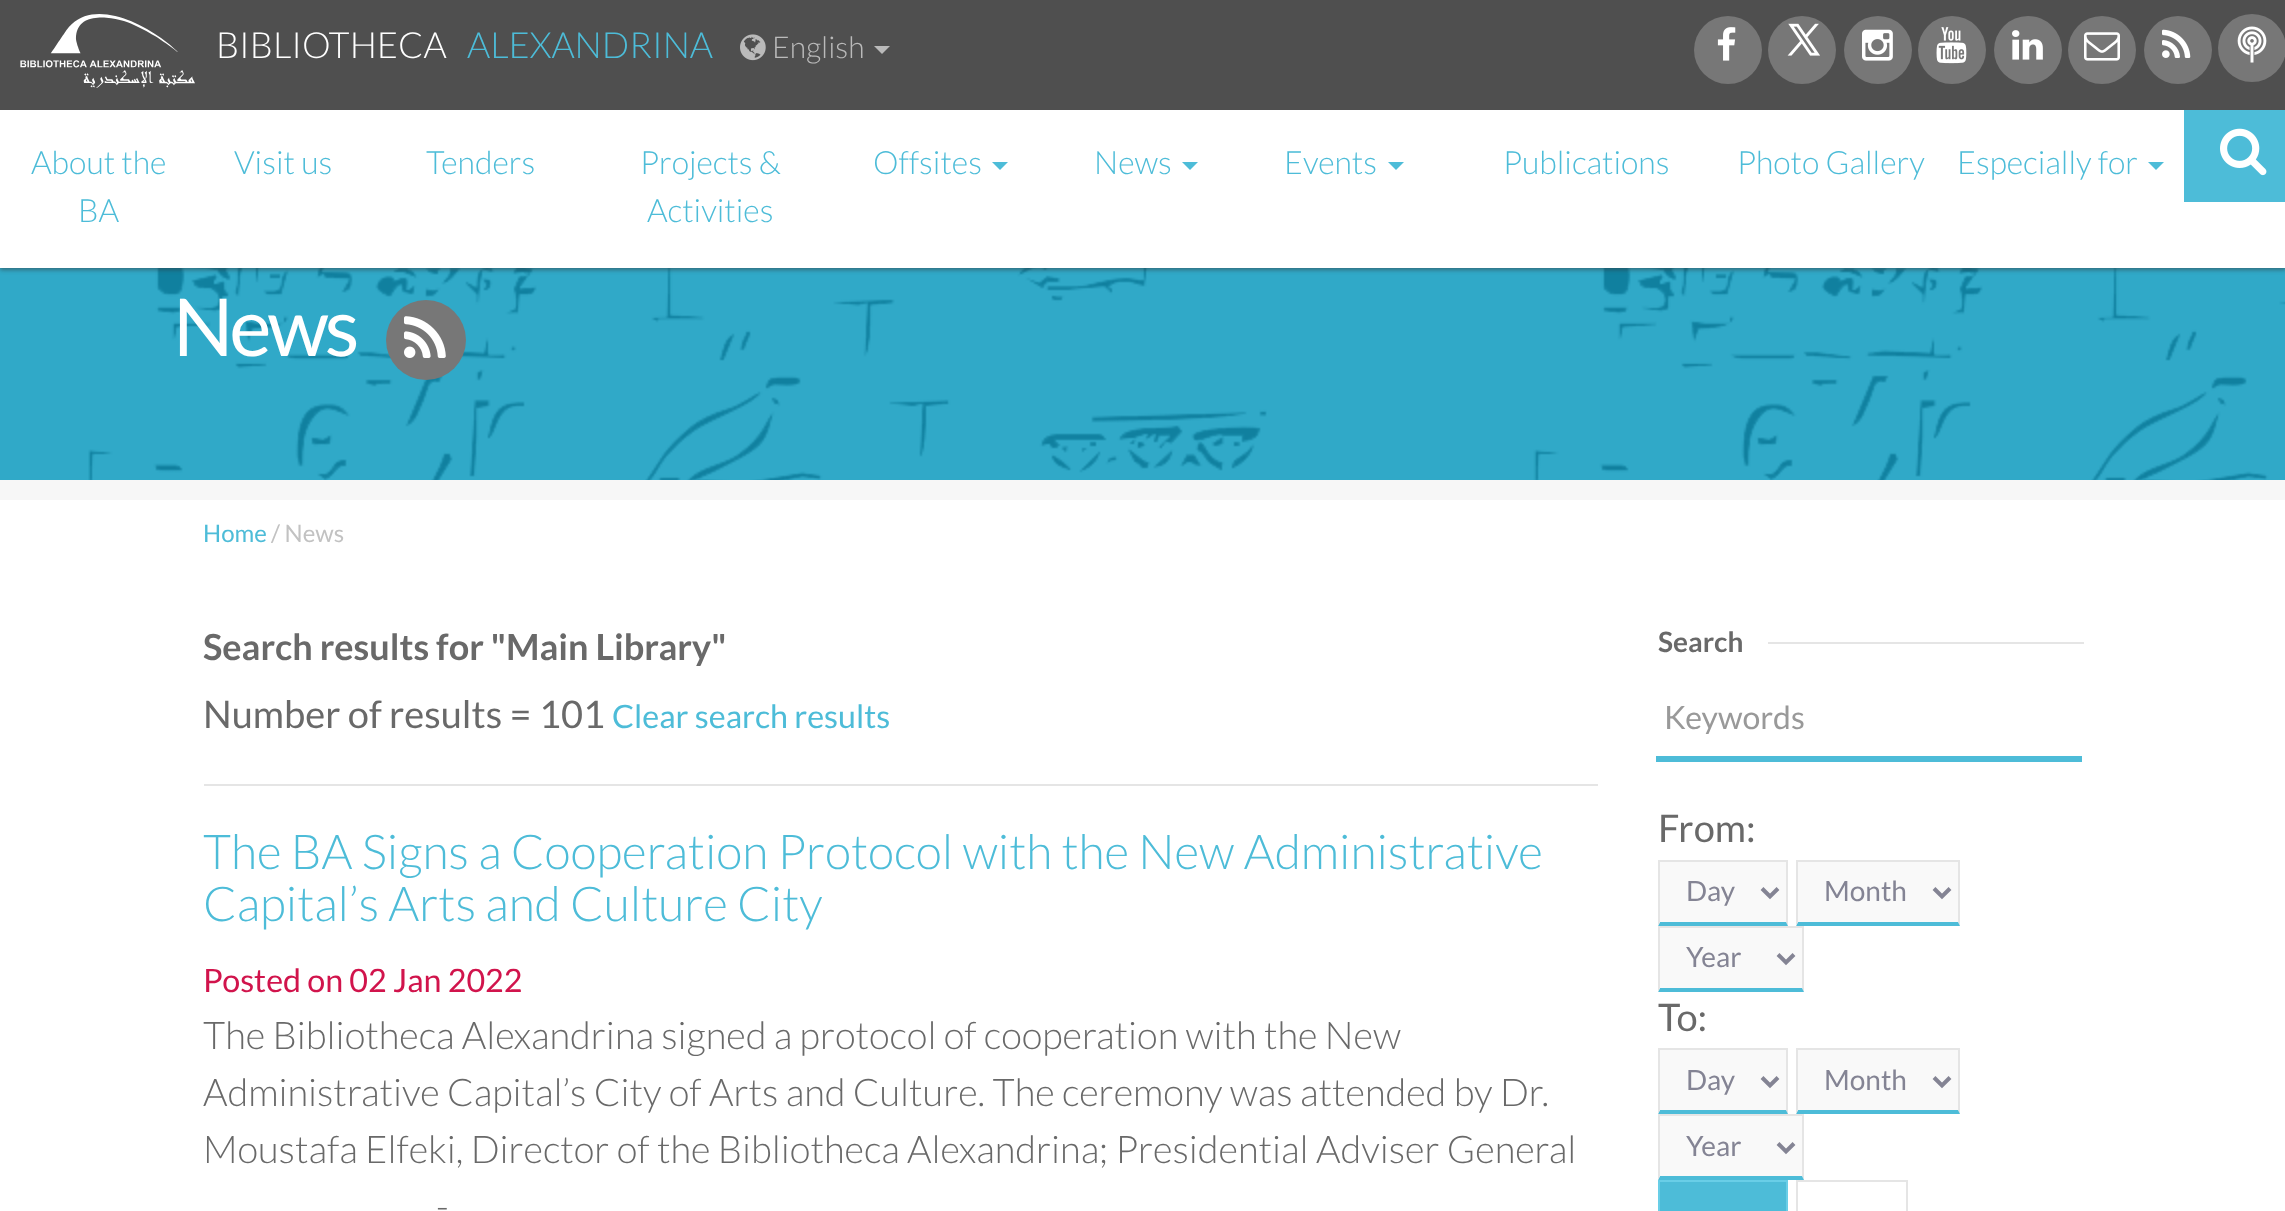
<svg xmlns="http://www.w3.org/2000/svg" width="2285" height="1211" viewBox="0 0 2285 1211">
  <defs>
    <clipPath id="clip1"><path d="M1664 698h410v36H1664z"/></clipPath>
  </defs>
  <rect width="100%" height="100%" fill="#fff"/>
  <path d="M0 268h2285v212H0z" fill="#30a9c8"/>
  <image x="88" y="268" width="2197" height="212" href="img/12.png"/>
  <path d="M0 2h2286v268H0z" fill="#32323280" filter="blur(2px)"/>
  <path d="M0 110h2285v158H0z" fill="#fff"/>
  <path d="M0 0h2285v110H0z" fill="#4f4f4f"/>
  <image x="20" y="14" width="175" height="74" href="img/1.png"/>
  <image x="740" y="34" width="26" height="27" href="img/2.png"/>
  <path d="M874 46H890L882 54Z" fill="#bababa"/>
  <circle cx="1728" cy="50" r="34" fill="#777"/>
  <image x="1717" y="27" width="19" height="34" href="img/3.png"/>
  <circle cx="1802" cy="50" r="34" fill="#777"/>
  <image x="1787" y="23" width="33" height="33" href="img/4.png"/>
  <circle cx="1878" cy="50" r="34" fill="#777"/>
  <image x="1862" y="29" width="31" height="32" href="img/5.png"/>
  <circle cx="1952" cy="50" r="34" fill="#777"/>
  <image x="1936" y="27" width="31" height="37" href="img/6.png"/>
  <circle cx="2028" cy="50" r="34" fill="#777"/>
  <image x="2012" y="30" width="31" height="30" href="img/7.png"/>
  <circle cx="2102" cy="50" r="34" fill="#777"/>
  <image x="2084" y="32" width="36" height="29" href="img/8.png"/>
  <circle cx="2178" cy="50" r="34" fill="#777"/>
  <image x="2162" y="29" width="29" height="29" href="img/9.png"/>
  <circle cx="2252" cy="48" r="34" fill="#777"/>
  <image x="2237" y="26" width="30" height="37" href="img/10.png"/>
  <path d="M992 162H1008L1000 170Z" fill="#4dbcd8"/>
  <path d="M1182 162H1198L1190 170Z" fill="#4dbcd8"/>
  <path d="M1388 162H1404L1396 170Z" fill="#4dbcd8"/>
  <path d="M2148 162H2164L2156 170Z" fill="#4dbcd8"/>
  <path d="M2184 110h101v92H2184z" fill="#4dbcd8"/>
  <image x="2220" y="128" width="47" height="48" href="img/11.png"/>
  <path d="M0 480h2285v20H0z" fill="#f7f7f7"/>
  <circle cx="426" cy="340" r="40" fill="#777"/>
  <image x="404" y="316" width="42" height="42" href="img/13.png"/>
  <path d="M204 784h1394v2H204z" fill="#e5e5e5"/>
  <path d="M1768 642h316v2H1768z" fill="#e5e5e5"/>
  <path d="M1656 756h426v6H1656z" fill="#4dbcd8"/>
  <path d="M1660 862h126v60H1660z" fill="#f9f9f9"/>
  <path d="M1658 860h130v2H1658z" fill="#e5e5e5"/>
  <path d="M1788 860V926L1786 922V862Z" fill="#e5e5e5"/>
  <path d="M1788 926H1658L1660 922H1786Z" fill="#4dbcd8"/>
  <path d="M1658 926V860L1660 862V922Z" fill="#e5e5e5"/>
  <path d="M1762 888.5L1770 896.5L1778 888.5" fill="none" stroke="#848494" stroke-width="4"/>
  <path d="M1798 862h160v60H1798z" fill="#f9f9f9"/>
  <path d="M1796 860h164v2H1796z" fill="#e5e5e5"/>
  <path d="M1960 860V926L1958 922V862Z" fill="#e5e5e5"/>
  <path d="M1960 926H1796L1798 922H1958Z" fill="#4dbcd8"/>
  <path d="M1796 926V860L1798 862V922Z" fill="#e5e5e5"/>
  <path d="M1934 888.5L1942 896.5L1950 888.5" fill="none" stroke="#848494" stroke-width="4"/>
  <path d="M1660 928h142v60H1660z" fill="#f9f9f9"/>
  <path d="M1658 926h146v2H1658z" fill="#e5e5e5"/>
  <path d="M1804 926V992L1802 988V928Z" fill="#e5e5e5"/>
  <path d="M1804 992H1658L1660 988H1802Z" fill="#4dbcd8"/>
  <path d="M1658 992V926L1660 928V988Z" fill="#e5e5e5"/>
  <path d="M1778 954.5L1786 962.5L1794 954.5" fill="none" stroke="#848494" stroke-width="4"/>
  <path d="M1660 1050h126v60H1660z" fill="#f9f9f9"/>
  <path d="M1658 1048h130v2H1658z" fill="#e5e5e5"/>
  <path d="M1788 1048V1114L1786 1110V1050Z" fill="#e5e5e5"/>
  <path d="M1788 1114H1658L1660 1110H1786Z" fill="#4dbcd8"/>
  <path d="M1658 1114V1048L1660 1050V1110Z" fill="#e5e5e5"/>
  <path d="M1762 1077.5L1770 1085.5L1778 1077.5" fill="none" stroke="#848494" stroke-width="4"/>
  <path d="M1798 1050h160v60H1798z" fill="#f9f9f9"/>
  <path d="M1796 1048h164v2H1796z" fill="#e5e5e5"/>
  <path d="M1960 1048V1114L1958 1110V1050Z" fill="#e5e5e5"/>
  <path d="M1960 1114H1796L1798 1110H1958Z" fill="#4dbcd8"/>
  <path d="M1796 1114V1048L1798 1050V1110Z" fill="#e5e5e5"/>
  <path d="M1934 1077.5L1942 1085.5L1950 1077.5" fill="none" stroke="#848494" stroke-width="4"/>
  <path d="M1660 1116h142v60H1660z" fill="#f9f9f9"/>
  <path d="M1658 1114h146v2H1658z" fill="#e5e5e5"/>
  <path d="M1804 1114V1180L1802 1176V1116Z" fill="#e5e5e5"/>
  <path d="M1804 1180H1658L1660 1176H1802Z" fill="#4dbcd8"/>
  <path d="M1658 1180V1114L1660 1116V1176Z" fill="#e5e5e5"/>
  <path d="M1778 1143.5L1786 1151.5L1794 1143.5" fill="none" stroke="#848494" stroke-width="4"/>
  <path d="M1659 1181h128v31H1659z" fill="#4dbcd8" stroke="#69cee7" stroke-width="2"/>
  <path d="M1797 1181h110v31H1797z" fill="none" stroke="#e5e5e5" stroke-width="2"/>
  <text x="216" y="58" font-family="Lato" font-size="36" font-weight="300" fill="#fff">BIBLIOTHECA</text>
  <text x="467" y="58" font-family="Lato" font-size="36" font-weight="300" fill="#4dbcd8">ALEXANDRINA</text>
  <text x="772" y="58" font-family="Lato" font-size="30" font-weight="300" fill="#bababa">English</text>
  <g font-family="Lato" font-size="32" font-weight="300" fill="#4dbcd8">
    <text x="31" y="174">About the</text>
    <text x="78" y="222">BA</text>
    <text x="234" y="174">Visit us</text>
    <text x="426" y="174">Tenders</text>
    <text x="640" y="174">Projects &amp;</text>
    <text x="647" y="222">Activities</text>
    <text x="873" y="174">Offsites</text>
    <text x="1094" y="174">News</text>
    <text x="1284" y="174">Events</text>
    <text x="1503" y="174">Publications</text>
    <text x="1737" y="174">Photo Gallery</text>
    <text x="1957" y="174">Especially for</text>
  </g>
  <text x="173" y="356" font-family="Lato" font-size="80" letter-spacing="-4" fill="#fff">News</text>
  <text x="203" y="542" font-family="Lato" font-size="24" fill="#4dbcd8">Home</text>
  <text x="271" y="542" font-family="Lato" font-size="24" fill="#c2c2c2">/ News</text>
  <text x="203" y="660" font-family="Lato" font-size="36" font-weight="bold" fill="#696969">Search results for "Main Library"</text>
  <text x="203" y="728" font-family="Lato" font-size="38" fill="#696969">Number of results = 101</text>
  <text x="612" y="728" font-family="Lato" font-size="32.25" fill="#4dbcd8">Clear search results</text>
  <g font-family="Lato" font-size="48" font-weight="300" fill="#4dbcd8">
    <text x="203" y="869">The BA Signs a Cooperation Protocol with the New Administrative</text>
    <text x="203" y="921">Capital’s Arts and Culture City</text>
  </g>
  <text x="203" y="992" font-family="Lato" font-size="32.25" fill="#d1144c">Posted on 02 Jan 2022</text>
  <g font-family="Lato" font-size="38" font-weight="300" fill="#696969">
    <text x="203" y="1049">The Bibliotheca Alexandrina signed a protocol of cooperation with the New</text>
    <text x="203" y="1106">Administrative Capital’s City of Arts and Culture. The ceremony was attended by Dr.</text>
    <text x="203" y="1163">Moustafa Elfeki, Director of the Bibliotheca Alexandrina; Presidential Adviser General</text>
    <text x="436" y="1220">-</text>
  </g>
  <text x="1658" y="652" font-family="Lato" font-size="28" font-weight="bold" fill="#696969">Search</text>
  <g clip-path="url(#clip1)">
    <text x="1664" y="729" font-family="Lato" font-size="32" fill="#999">Keywords</text>
  </g>
  <text x="1658" y="842" font-family="Lato" font-size="38" fill="#696969">From:</text>
  <g font-family="Lato" font-size="28" fill="#848494">
    <text x="1686" y="901">Day</text>
    <text x="1824" y="901">Month</text>
    <text x="1686" y="967">Year</text>
  </g>
  <text x="1658" y="1031" font-family="Lato" font-size="38" fill="#696969">To:</text>
  <g font-family="Lato" font-size="28" fill="#848494">
    <text x="1686" y="1090">Day</text>
    <text x="1824" y="1090">Month</text>
    <text x="1686" y="1156">Year</text>
  </g>
</svg>
